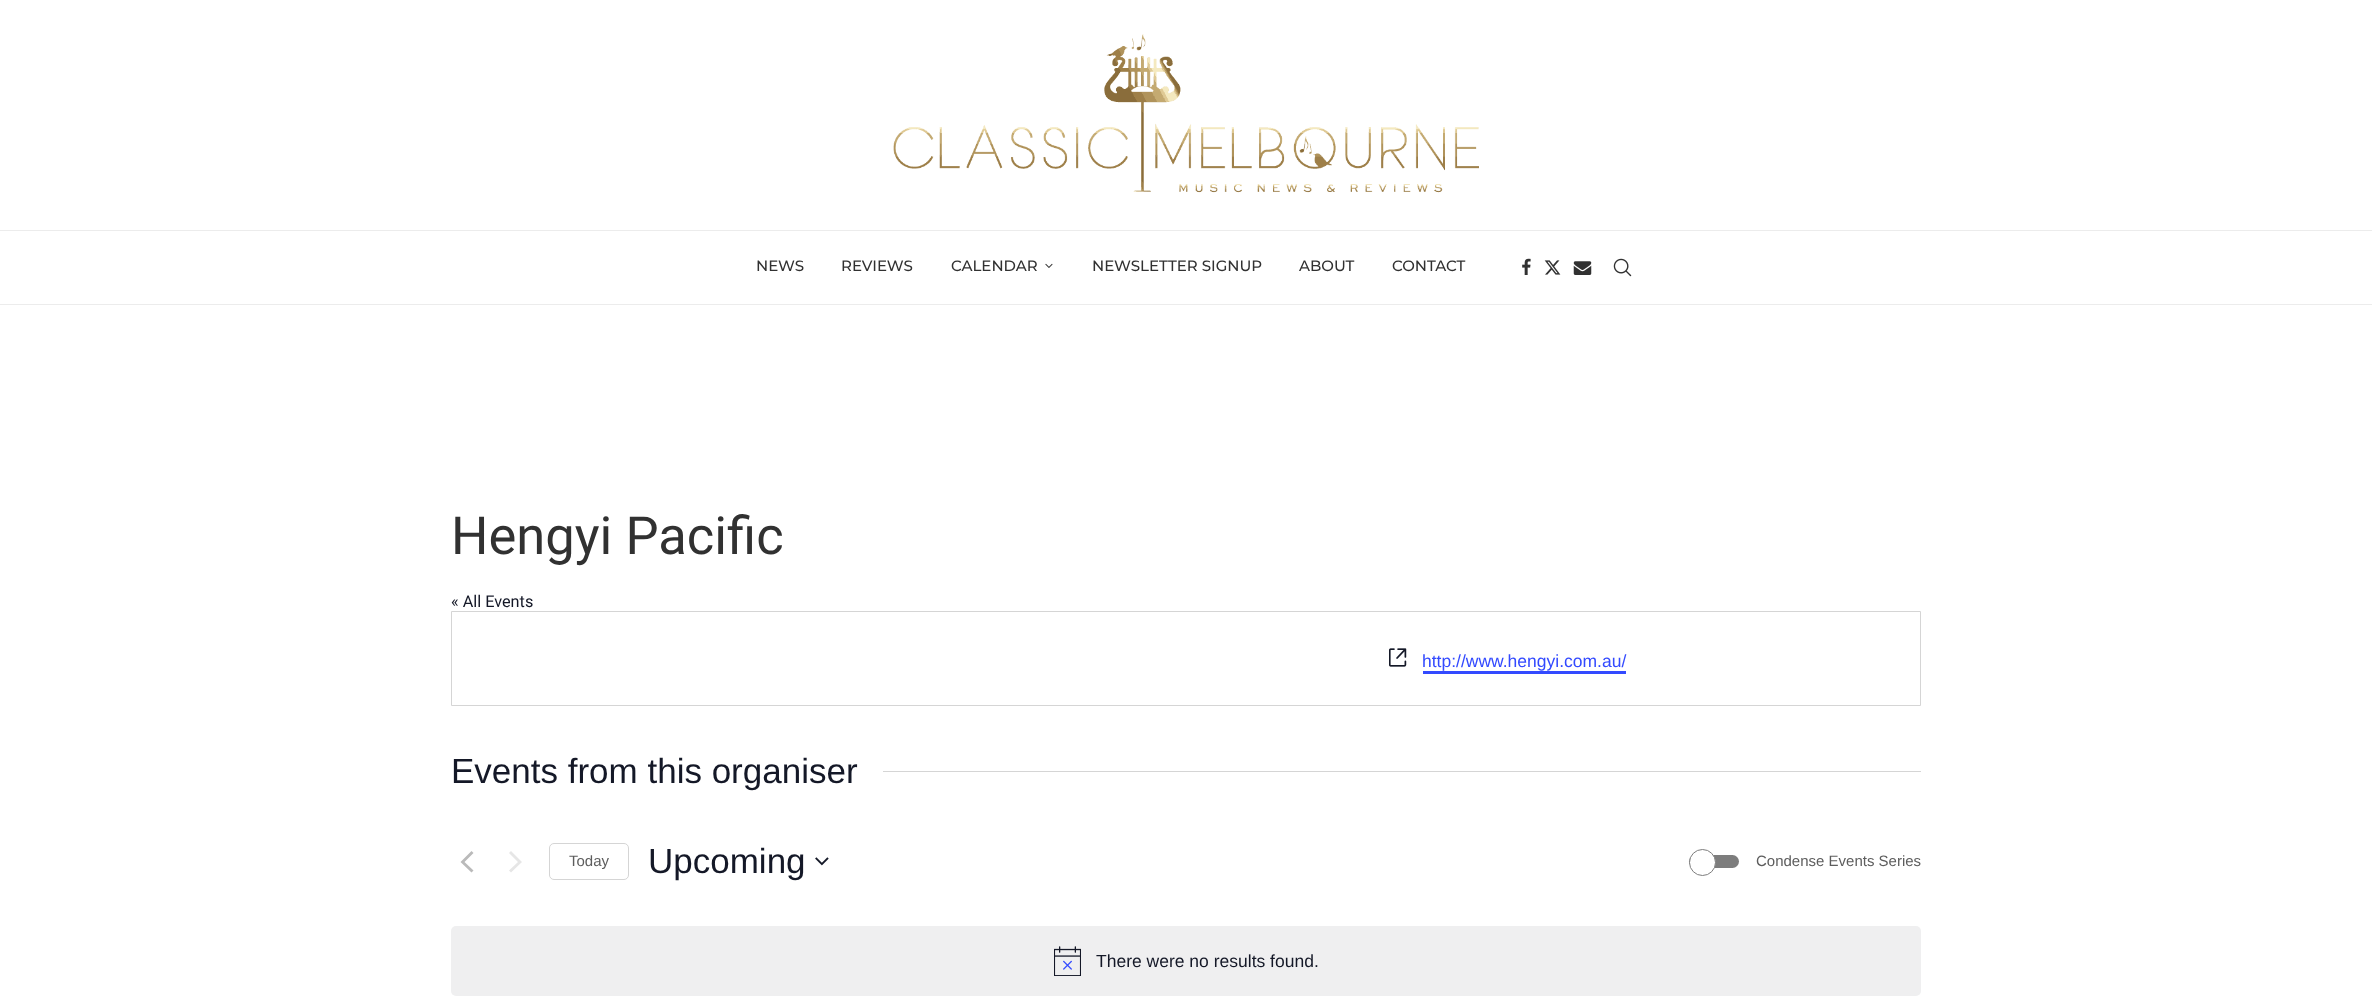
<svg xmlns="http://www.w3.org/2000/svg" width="2372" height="996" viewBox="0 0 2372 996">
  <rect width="100%" height="100%" fill="#fff"/>
  <image x="893" y="34" width="586" height="159" href="img/1.png"/>
  <path d="M0 230h2372v1H0z" fill="#ececec"/>
  <path d="M0 304h2372v1H0z" fill="#ececec"/>
  <image x="1045" y="263" width="8" height="5" href="img/2.png"/>
  <image x="1522" y="258" width="9" height="17" href="img/3.png"/>
  <image x="1544" y="260" width="17" height="15" href="img/4.png"/>
  <image x="1573" y="261" width="19" height="14" href="img/5.png"/>
  <image x="1613" y="258" width="19" height="19" href="img/6.png"/>
  <path d="M451.5 611.5h1469v94H451.5z" fill="none" stroke="#d5d5d5"/>
  <image x="1389" y="648" width="18" height="19" href="img/7.png"/>
  <path d="M1423 671h203v3H1423z" fill="#334aff"/>
  <path d="M883 771h1038v1H883z" fill="#d5d5d5"/>
  <path d="M473.5 870.5L471.5 872.5L460.5 862L471.5 851L473.5 853L464.5 862Z" fill="#bababa"/>
  <path d="M509 853L511 851L522 862L511 872.5L509 870.5L518 862Z" fill="#e6e6e6"/>
  <rect x="549.5" y="843.5" width="79" height="36" rx="4.5" fill="none" stroke="#d5d5d5"/>
  <image x="815" y="857" width="14" height="9" href="img/8.png"/>
  <rect x="1689" y="855" width="50" height="13" rx="6.5" fill="#7d7d7d"/>
  <circle cx="1702.5" cy="862.5" r="13" fill="#fff" stroke="#7d7d7d"/>
  <rect x="451" y="926" width="1470" height="70" rx="5" fill="#efeff0"/>
  <image x="1054" y="946" width="27" height="30" href="img/9.png"/>
  <g font-family="Montserrat" font-size="15" font-weight="500" fill="#313131">
    <text x="756" y="271">NEWS</text>
    <text x="841" y="271">REVIEWS</text>
    <text x="951" y="271">CALENDAR</text>
    <text x="1092" y="271">NEWSLETTER SIGNUP</text>
    <text x="1299" y="271">ABOUT</text>
    <text x="1392" y="271">CONTACT</text>
  </g>
  <text x="451" y="554" font-family="Roboto" font-size="52.5" fill="#313131">Hengyi Pacific</text>
  <text x="451" y="607" font-family="Roboto" font-size="16.25" fill="#141827">« All Events</text>
  <text x="1422" y="667" font-family="Liberation Sans" font-size="17.5" fill="#334aff">http://www.hengyi.com.au/</text>
  <text x="451" y="783" font-family="Liberation Sans" font-size="35" fill="#141827">Events from this organiser</text>
  <text x="569" y="866" font-family="Liberation Sans" font-size="15" fill="#5d5d5d">Today</text>
  <text x="648" y="873" font-family="Liberation Sans" font-size="35" fill="#141827">Upcoming</text>
  <text x="1756" y="866" font-family="Liberation Sans" font-size="15" fill="#5d5d5d">Condense Events Series</text>
  <text x="1096" y="967" font-family="Liberation Sans" font-size="17.5" fill="#141827">There were no results found.</text>
</svg>
